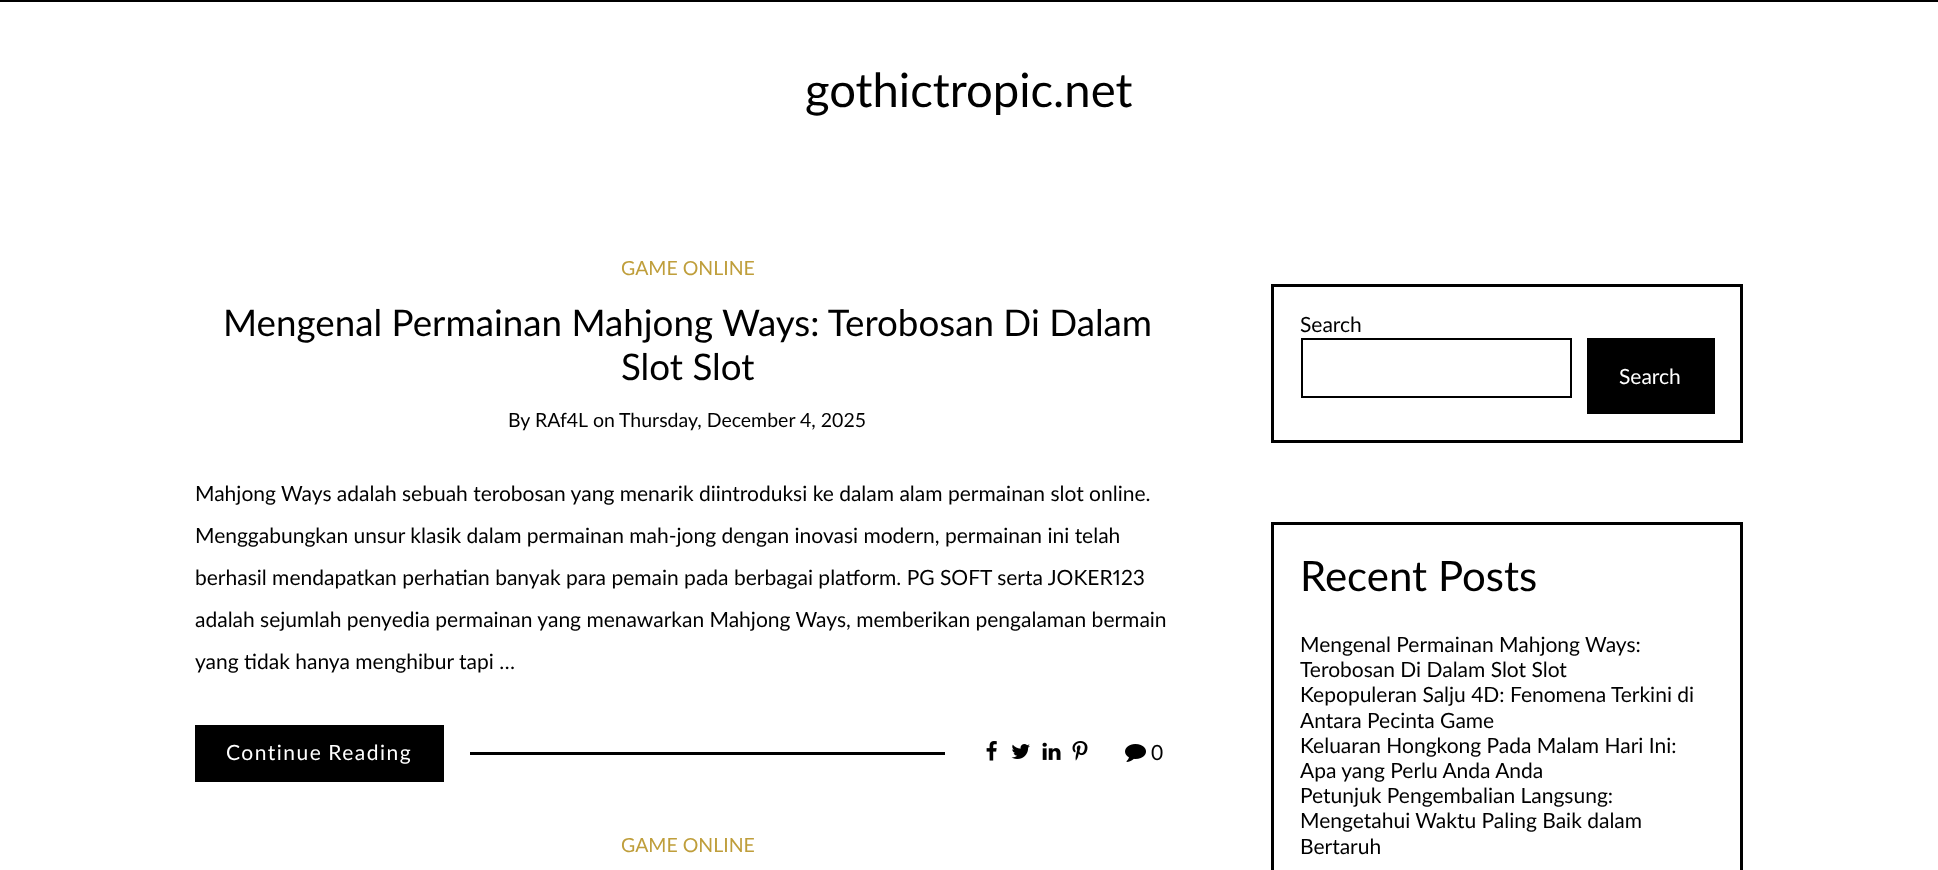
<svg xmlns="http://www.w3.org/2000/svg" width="1938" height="870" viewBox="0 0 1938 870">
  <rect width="100%" height="100%" fill="#fff"/>
  <path d="M0 0h1938v2H0z" fill="#000"/>
  <path d="M195 725h249v57H195z" fill="#000"/>
  <path d="M470 752h475v3H470z" fill="#000"/>
  <image x="986" y="741" width="11" height="20" href="img/1.png"/>
  <image x="1011" y="744" width="19" height="15" href="img/2.png"/>
  <image x="1042" y="742" width="19" height="18" href="img/3.png"/>
  <image x="1072" y="741" width="16" height="20" href="img/4.png"/>
  <image x="1125" y="744" width="21" height="18" href="img/5.png"/>
  <path d="M1272.5 285.5h469v156H1272.5z" fill="none" stroke="#000" stroke-width="3"/>
  <path d="M1302 339h269v58H1302z" fill="none" stroke="#000" stroke-width="2"/>
  <path d="M1587 338h128v76H1587z" fill="#000"/>
  <path d="M1272.5 523.5h469v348H1272.5z" fill="none" stroke="#000" stroke-width="3"/>
  <text x="805" y="107" font-family="Lato" font-size="47.25" fill="#000">gothictropic.net</text>
  <text x="621" y="275" font-family="Lato" font-size="19.5" fill="#bf9e3b">GAME ONLINE</text>
  <g font-family="Lato" font-size="36.75" fill="#000">
    <text x="223" y="336">Mengenal Permainan Mahjong Ways: Terobosan Di Dalam</text>
    <text x="621" y="380">Slot Slot</text>
  </g>
  <g font-family="Lato" font-size="19.5" fill="#000">
    <text x="508" y="427">By RAf4L</text>
    <text x="593" y="427">on</text>
    <text x="619" y="427">Thursday, December 4, 2025</text>
  </g>
  <g font-family="Lato" font-size="21" fill="#000">
    <text x="195" y="501">Mahjong Ways adalah sebuah terobosan yang menarik diintroduksi ke dalam alam permainan slot online.</text>
    <text x="195" y="543">Menggabungkan unsur klasik dalam permainan mah-jong dengan inovasi modern, permainan ini telah</text>
  </g>
  <text x="195" y="585" font-family="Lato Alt" font-size="21" fill="#000">berhasil mendapatkan perhatian banyak para pemain pada berbagai platform. PG SOFT serta JOKER123</text>
  <g font-family="Lato" font-size="21" fill="#000">
    <text x="195" y="627">adalah sejumlah penyedia permainan yang menawarkan Mahjong Ways, memberikan pengalaman bermain</text>
    <text x="195" y="669">yang tidak hanya menghibur tapi …</text>
  </g>
  <text x="226" y="760" word-spacing="-1" font-family="Lato" font-size="21" letter-spacing="1.5" fill="#fff">Continue Reading</text>
  <text x="1151" y="760" font-family="Lato" font-size="21" fill="#000">0</text>
  <text x="621" y="852" font-family="Lato" font-size="19.5" fill="#bf9e3b">GAME ONLINE</text>
  <text x="1300" y="332" font-family="Lato" font-size="21" fill="#000">Search</text>
  <text x="1619" y="384" font-family="Lato" font-size="21" fill="#fff">Search</text>
  <text x="1300" y="591" font-family="Lato" font-size="42" fill="#000">Recent Posts</text>
  <g font-family="Lato" font-size="21" fill="#000">
    <text x="1300" y="652">Mengenal Permainan Mahjong Ways:</text>
    <text x="1300" y="677">Terobosan Di Dalam Slot Slot</text>
    <text x="1300" y="702">Kepopuleran Salju 4D: Fenomena Terkini di</text>
    <text x="1300" y="728">Antara Pecinta Game</text>
    <text x="1300" y="753">Keluaran Hongkong Pada Malam Hari Ini:</text>
    <text x="1300" y="778">Apa yang Perlu Anda Anda</text>
    <text x="1300" y="803">Petunjuk Pengembalian Langsung:</text>
    <text x="1300" y="828">Mengetahui Waktu Paling Baik dalam</text>
    <text x="1300" y="854">Bertaruh</text>
  </g>
</svg>
